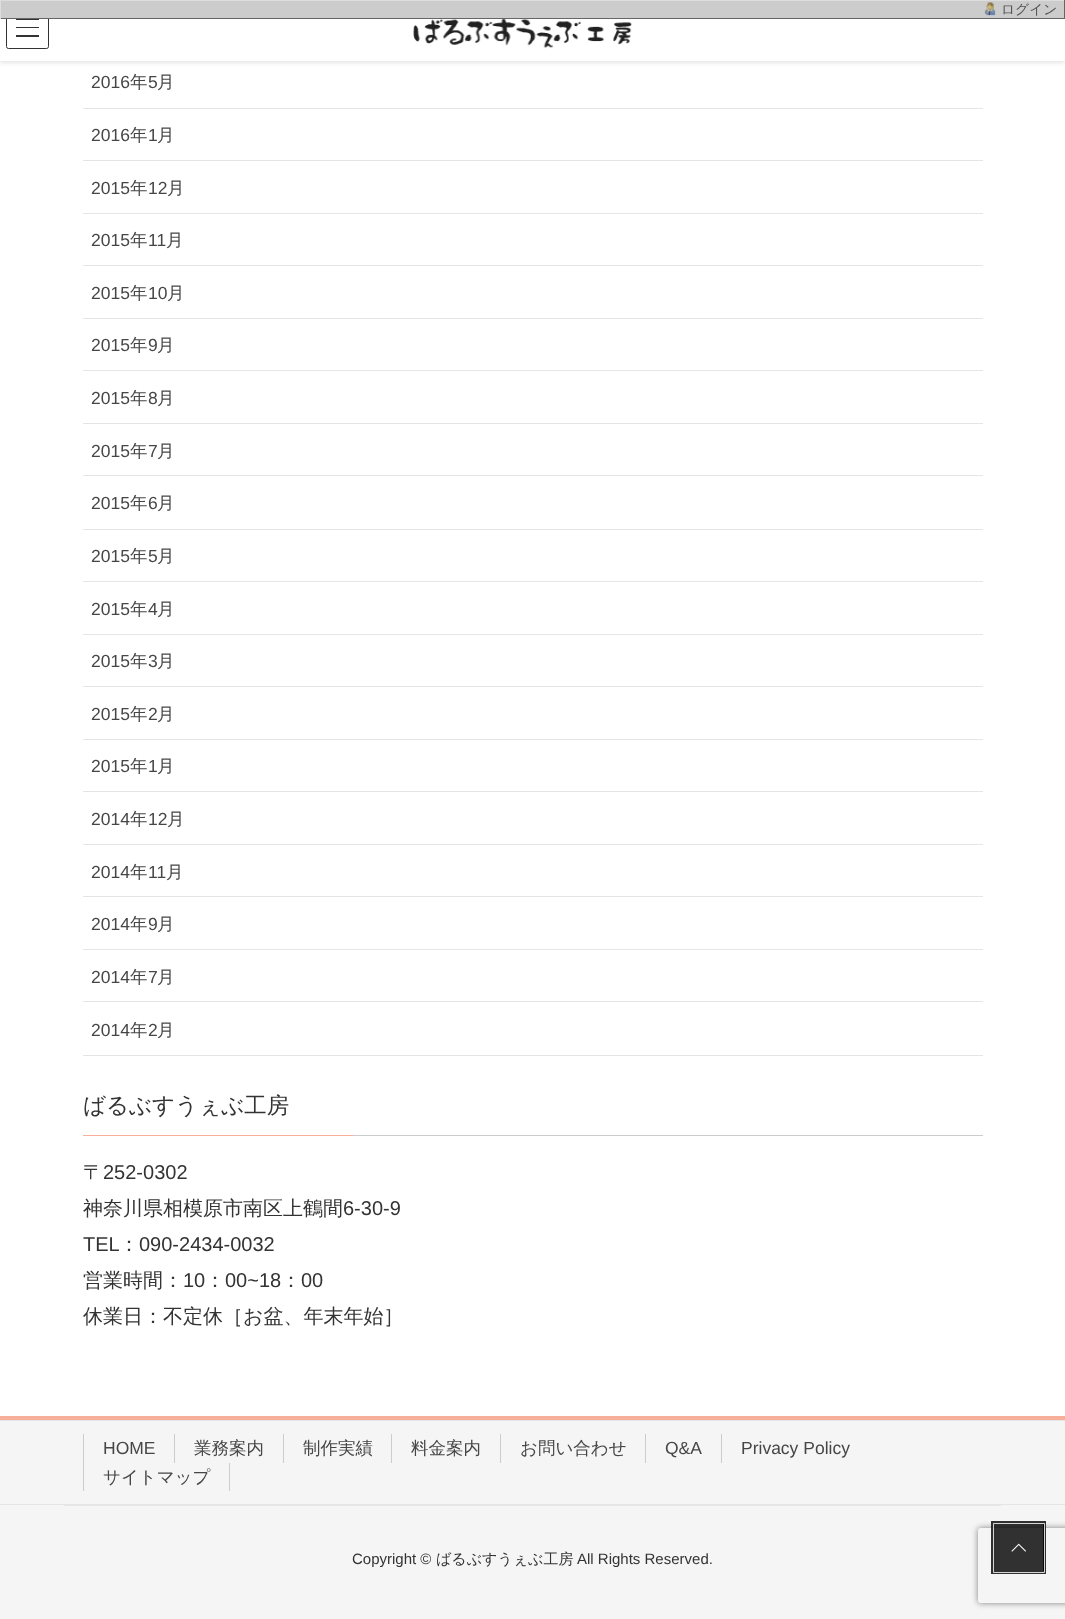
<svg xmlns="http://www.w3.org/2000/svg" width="1065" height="1619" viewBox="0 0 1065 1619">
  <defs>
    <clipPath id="clip1"><path d="M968 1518H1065V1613H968ZM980.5 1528H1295.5C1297 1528 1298 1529 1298 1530.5V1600.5C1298 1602 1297 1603 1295.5 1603H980.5C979 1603 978 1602 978 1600.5V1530.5C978 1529 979 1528 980.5 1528Z" clip-rule="evenodd"/></clipPath>
  </defs>
  <rect width="100%" height="100%" fill="#fff"/>
  <path d="M0 1h1065v62H0z" fill="#0000001a" filter="blur(2px)"/>
  <path d="M0 19h1065v42H0z" fill="#fff"/>
  <image x="413" y="19" width="219" height="30" href="img/1.png"/>
  <path d="M16 19h23v1H16z" fill="#333"/>
  <path d="M16 27h23v1H16z" fill="#333"/>
  <path d="M16 35h23v2H16z" fill="#333"/>
  <rect x="6.5" y="6.5" width="42" height="42" rx="2" fill="none" stroke="#333"/>
  <path d="M1 1h1063v17H1z" fill="#ccc"/>
  <path d="M0 0h1065v1H0z" fill="#ddd"/>
  <path d="M1064 0h1v19H1064z" fill="#666"/>
  <path d="M0 18h1065v1H0z" fill="#666"/>
  <path d="M0 0h1v19H0z" fill="#ddd"/>
  <image x="984" y="2" width="12" height="14" href="img/2.png"/>
  <path d="M83 108h900v1H83z" fill="#e5e5e5"/>
  <path d="M83 160h900v1H83z" fill="#e5e5e5"/>
  <path d="M83 213h900v1H83z" fill="#e5e5e5"/>
  <path d="M83 265h900v1H83z" fill="#e5e5e5"/>
  <path d="M83 318h900v1H83z" fill="#e5e5e5"/>
  <path d="M83 370h900v1H83z" fill="#e5e5e5"/>
  <path d="M83 423h900v1H83z" fill="#e5e5e5"/>
  <path d="M83 475h900v1H83z" fill="#e5e5e5"/>
  <path d="M83 529h900v1H83z" fill="#e5e5e5"/>
  <path d="M83 581h900v1H83z" fill="#e5e5e5"/>
  <path d="M83 634h900v1H83z" fill="#e5e5e5"/>
  <path d="M83 686h900v1H83z" fill="#e5e5e5"/>
  <path d="M83 739h900v1H83z" fill="#e5e5e5"/>
  <path d="M83 791h900v1H83z" fill="#e5e5e5"/>
  <path d="M83 844h900v1H83z" fill="#e5e5e5"/>
  <path d="M83 896h900v1H83z" fill="#e5e5e5"/>
  <path d="M83 949h900v1H83z" fill="#e5e5e5"/>
  <path d="M83 1001h900v1H83z" fill="#e5e5e5"/>
  <path d="M83 1055h900v1H83z" fill="#e5e5e5"/>
  <path d="M353 1135h630v1H353z" fill="#ccc"/>
  <path d="M83 1135h270v1H83z" fill="#f7af99"/>
  <path d="M0 1421h1065v198H0z" fill="#f5f5f5"/>
  <path d="M0 1416h1065v4H0z" fill="#f7af99"/>
  <path d="M0 1420h1065v1H0z" fill="#e5e5e5"/>
  <path d="M0 1504h1065v1H0z" fill="#e5e5e5"/>
  <path d="M83 1434h1v57H83z" fill="#ccc"/>
  <path d="M174 1434h1v29H174z" fill="#ccc"/>
  <path d="M283 1434h1v29H283z" fill="#ccc"/>
  <path d="M391 1434h1v29H391z" fill="#ccc"/>
  <path d="M500 1434h1v29H500z" fill="#ccc"/>
  <path d="M645 1434h1v29H645z" fill="#ccc"/>
  <path d="M721 1434h1v29H721z" fill="#ccc"/>
  <path d="M229 1463h1v28H229z" fill="#ccc"/>
  <path d="M64 1505h937v1H64z" fill="#e5e5e5"/>
  <g clip-path="url(#clip1)">
    <rect x="978" y="1528" width="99" height="75" rx="2.5" fill="#808080" filter="blur(3px)"/>
  </g>
  <path d="M992.5 1522.5h52v50H992.5z" fill="none" stroke="#000000cc" stroke-width="3"/>
  <path d="M993.5 1523.5h51v49H993.5z" fill="none" stroke="#ffffffcc"/>
  <path d="M994 1524h50v47H994z" fill="#000000cc"/>
  <image x="1011" y="1543" width="15" height="9" href="img/3.png"/>
  <text x="1001" y="14" font-family="WenQuanYi Zen Hei" font-size="13.75" font-weight="500" fill="#555">ログイン</text>
  <text x="91" y="88" font-family="Liberation Sans" font-size="17.5" fill="#464646">2016</text>
  <text x="130" y="88" font-family="WenQuanYi Zen Hei" font-size="17.5" font-weight="500" fill="#464646">年</text>
  <text x="148" y="88" font-family="Liberation Sans" font-size="17.5" fill="#464646">5</text>
  <text x="157" y="88" font-family="WenQuanYi Zen Hei" font-size="17.5" font-weight="500" fill="#464646">月</text>
  <text x="91" y="141" font-family="Liberation Sans" font-size="17.5" fill="#464646">2016</text>
  <text x="130" y="141" font-family="WenQuanYi Zen Hei" font-size="17.5" font-weight="500" fill="#464646">年</text>
  <text x="148" y="141" font-family="Liberation Sans" font-size="17.5" fill="#464646">1</text>
  <text x="157" y="141" font-family="WenQuanYi Zen Hei" font-size="17.5" font-weight="500" fill="#464646">月</text>
  <text x="91" y="194" font-family="Liberation Sans" font-size="17.5" fill="#464646">2015</text>
  <text x="130" y="194" font-family="WenQuanYi Zen Hei" font-size="17.5" font-weight="500" fill="#464646">年</text>
  <text x="148" y="194" font-family="Liberation Sans" font-size="17.5" fill="#464646">12</text>
  <text x="167" y="194" font-family="WenQuanYi Zen Hei" font-size="17.5" font-weight="500" fill="#464646">月</text>
  <text x="91" y="246" font-family="Liberation Sans" font-size="17.5" fill="#464646">2015</text>
  <text x="130" y="246" font-family="WenQuanYi Zen Hei" font-size="17.5" font-weight="500" fill="#464646">年</text>
  <text x="148" y="246" font-family="Liberation Sans" font-size="17.5" fill="#464646">11</text>
  <text x="166" y="246" font-family="WenQuanYi Zen Hei" font-size="17.5" font-weight="500" fill="#464646">月</text>
  <text x="91" y="299" font-family="Liberation Sans" font-size="17.5" fill="#464646">2015</text>
  <text x="130" y="299" font-family="WenQuanYi Zen Hei" font-size="17.5" font-weight="500" fill="#464646">年</text>
  <text x="148" y="299" font-family="Liberation Sans" font-size="17.5" fill="#464646">10</text>
  <text x="167" y="299" font-family="WenQuanYi Zen Hei" font-size="17.5" font-weight="500" fill="#464646">月</text>
  <text x="91" y="351" font-family="Liberation Sans" font-size="17.5" fill="#464646">2015</text>
  <text x="130" y="351" font-family="WenQuanYi Zen Hei" font-size="17.5" font-weight="500" fill="#464646">年</text>
  <text x="148" y="351" font-family="Liberation Sans" font-size="17.5" fill="#464646">9</text>
  <text x="157" y="351" font-family="WenQuanYi Zen Hei" font-size="17.5" font-weight="500" fill="#464646">月</text>
  <text x="91" y="404" font-family="Liberation Sans" font-size="17.5" fill="#464646">2015</text>
  <text x="130" y="404" font-family="WenQuanYi Zen Hei" font-size="17.5" font-weight="500" fill="#464646">年</text>
  <text x="148" y="404" font-family="Liberation Sans" font-size="17.5" fill="#464646">8</text>
  <text x="157" y="404" font-family="WenQuanYi Zen Hei" font-size="17.5" font-weight="500" fill="#464646">月</text>
  <text x="91" y="457" font-family="Liberation Sans" font-size="17.5" fill="#464646">2015</text>
  <text x="130" y="457" font-family="WenQuanYi Zen Hei" font-size="17.5" font-weight="500" fill="#464646">年</text>
  <text x="148" y="457" font-family="Liberation Sans" font-size="17.5" fill="#464646">7</text>
  <text x="157" y="457" font-family="WenQuanYi Zen Hei" font-size="17.5" font-weight="500" fill="#464646">月</text>
  <text x="91" y="509" font-family="Liberation Sans" font-size="17.5" fill="#464646">2015</text>
  <text x="130" y="509" font-family="WenQuanYi Zen Hei" font-size="17.5" font-weight="500" fill="#464646">年</text>
  <text x="148" y="509" font-family="Liberation Sans" font-size="17.5" fill="#464646">6</text>
  <text x="157" y="509" font-family="WenQuanYi Zen Hei" font-size="17.5" font-weight="500" fill="#464646">月</text>
  <text x="91" y="562" font-family="Liberation Sans" font-size="17.5" fill="#464646">2015</text>
  <text x="130" y="562" font-family="WenQuanYi Zen Hei" font-size="17.5" font-weight="500" fill="#464646">年</text>
  <text x="148" y="562" font-family="Liberation Sans" font-size="17.5" fill="#464646">5</text>
  <text x="157" y="562" font-family="WenQuanYi Zen Hei" font-size="17.5" font-weight="500" fill="#464646">月</text>
  <text x="91" y="615" font-family="Liberation Sans" font-size="17.5" fill="#464646">2015</text>
  <text x="130" y="615" font-family="WenQuanYi Zen Hei" font-size="17.5" font-weight="500" fill="#464646">年</text>
  <text x="148" y="615" font-family="Liberation Sans" font-size="17.5" fill="#464646">4</text>
  <text x="157" y="615" font-family="WenQuanYi Zen Hei" font-size="17.5" font-weight="500" fill="#464646">月</text>
  <text x="91" y="667" font-family="Liberation Sans" font-size="17.5" fill="#464646">2015</text>
  <text x="130" y="667" font-family="WenQuanYi Zen Hei" font-size="17.5" font-weight="500" fill="#464646">年</text>
  <text x="148" y="667" font-family="Liberation Sans" font-size="17.5" fill="#464646">3</text>
  <text x="157" y="667" font-family="WenQuanYi Zen Hei" font-size="17.5" font-weight="500" fill="#464646">月</text>
  <text x="91" y="720" font-family="Liberation Sans" font-size="17.5" fill="#464646">2015</text>
  <text x="130" y="720" font-family="WenQuanYi Zen Hei" font-size="17.5" font-weight="500" fill="#464646">年</text>
  <text x="148" y="720" font-family="Liberation Sans" font-size="17.5" fill="#464646">2</text>
  <text x="157" y="720" font-family="WenQuanYi Zen Hei" font-size="17.5" font-weight="500" fill="#464646">月</text>
  <text x="91" y="772" font-family="Liberation Sans" font-size="17.5" fill="#464646">2015</text>
  <text x="130" y="772" font-family="WenQuanYi Zen Hei" font-size="17.5" font-weight="500" fill="#464646">年</text>
  <text x="148" y="772" font-family="Liberation Sans" font-size="17.5" fill="#464646">1</text>
  <text x="157" y="772" font-family="WenQuanYi Zen Hei" font-size="17.5" font-weight="500" fill="#464646">月</text>
  <text x="91" y="825" font-family="Liberation Sans" font-size="17.5" fill="#464646">2014</text>
  <text x="130" y="825" font-family="WenQuanYi Zen Hei" font-size="17.5" font-weight="500" fill="#464646">年</text>
  <text x="148" y="825" font-family="Liberation Sans" font-size="17.5" fill="#464646">12</text>
  <text x="167" y="825" font-family="WenQuanYi Zen Hei" font-size="17.5" font-weight="500" fill="#464646">月</text>
  <text x="91" y="878" font-family="Liberation Sans" font-size="17.5" fill="#464646">2014</text>
  <text x="130" y="878" font-family="WenQuanYi Zen Hei" font-size="17.5" font-weight="500" fill="#464646">年</text>
  <text x="148" y="878" font-family="Liberation Sans" font-size="17.5" fill="#464646">11</text>
  <text x="166" y="878" font-family="WenQuanYi Zen Hei" font-size="17.5" font-weight="500" fill="#464646">月</text>
  <text x="91" y="930" font-family="Liberation Sans" font-size="17.5" fill="#464646">2014</text>
  <text x="130" y="930" font-family="WenQuanYi Zen Hei" font-size="17.5" font-weight="500" fill="#464646">年</text>
  <text x="148" y="930" font-family="Liberation Sans" font-size="17.5" fill="#464646">9</text>
  <text x="157" y="930" font-family="WenQuanYi Zen Hei" font-size="17.5" font-weight="500" fill="#464646">月</text>
  <text x="91" y="983" font-family="Liberation Sans" font-size="17.5" fill="#464646">2014</text>
  <text x="130" y="983" font-family="WenQuanYi Zen Hei" font-size="17.5" font-weight="500" fill="#464646">年</text>
  <text x="148" y="983" font-family="Liberation Sans" font-size="17.5" fill="#464646">7</text>
  <text x="157" y="983" font-family="WenQuanYi Zen Hei" font-size="17.5" font-weight="500" fill="#464646">月</text>
  <text x="91" y="1036" font-family="Liberation Sans" font-size="17.5" fill="#464646">2014</text>
  <text x="130" y="1036" font-family="WenQuanYi Zen Hei" font-size="17.5" font-weight="500" fill="#464646">年</text>
  <text x="148" y="1036" font-family="Liberation Sans" font-size="17.5" fill="#464646">2</text>
  <text x="157" y="1036" font-family="WenQuanYi Zen Hei" font-size="17.5" font-weight="500" fill="#464646">月</text>
  <text x="83" y="1113" font-family="WenQuanYi Zen Hei" font-size="22.5" font-weight="500" fill="#333">ばるぶすうぇぶ工房</text>
  <text x="83" y="1179" font-family="WenQuanYi Zen Hei" font-size="20" font-weight="500" fill="#333">〒</text>
  <text x="103" y="1179" font-family="Liberation Sans" font-size="20" fill="#333">252-0302</text>
  <text x="83" y="1215" font-family="WenQuanYi Zen Hei" font-size="20" font-weight="500" fill="#333">神奈川県相模原市南区上鶴間</text>
  <g font-family="Liberation Sans" font-size="20" fill="#333">
    <text x="343" y="1215">6-30-9</text>
    <text x="83" y="1251">TEL</text>
  </g>
  <text x="119" y="1251" font-family="WenQuanYi Zen Hei" font-size="20" font-weight="500" fill="#333">：</text>
  <text x="139" y="1251" font-family="Liberation Sans" font-size="20" fill="#333">090-2434-0032</text>
  <text x="83" y="1287" font-family="WenQuanYi Zen Hei" font-size="20" font-weight="500" fill="#333">営業時間：</text>
  <text x="183" y="1287" font-family="Liberation Sans" font-size="20" fill="#333">10</text>
  <text x="205" y="1287" font-family="WenQuanYi Zen Hei" font-size="20" font-weight="500" fill="#333">：</text>
  <text x="225" y="1287" font-family="Liberation Sans" font-size="20" fill="#333">00~18</text>
  <text x="281" y="1287" font-family="WenQuanYi Zen Hei" font-size="20" font-weight="500" fill="#333">：</text>
  <text x="301" y="1287" font-family="Liberation Sans" font-size="20" fill="#333">00</text>
  <text x="83" y="1323" font-family="WenQuanYi Zen Hei" font-size="20" font-weight="500" fill="#333">休業日：不定休［お盆、年末年始］</text>
  <text x="103" y="1454" font-family="Liberation Sans" font-size="17.5" fill="#464646">HOME</text>
  <g font-family="WenQuanYi Zen Hei" font-size="17.5" font-weight="500" fill="#464646">
    <text x="194" y="1454">業務案内</text>
    <text x="303" y="1454">制作実績</text>
    <text x="411" y="1454">料金案内</text>
    <text x="520" y="1454">お問い合わせ</text>
  </g>
  <g font-family="Liberation Sans" font-size="17.5" fill="#464646">
    <text x="665" y="1454">Q&amp;A</text>
    <text x="741" y="1454">Privacy Policy</text>
  </g>
  <text x="103" y="1483" font-family="WenQuanYi Zen Hei" font-size="17.5" font-weight="500" fill="#464646">サイトマップ</text>
  <text x="352" y="1564" font-family="Liberation Sans" font-size="15" fill="#333">Copyright ©</text>
  <text x="436" y="1564" font-family="WenQuanYi Zen Hei" font-size="15" font-weight="500" fill="#333">ばるぶすうぇぶ工房</text>
  <text x="577" y="1564" font-family="Liberation Sans" font-size="15" fill="#333">All Rights Reserved.</text>
</svg>
